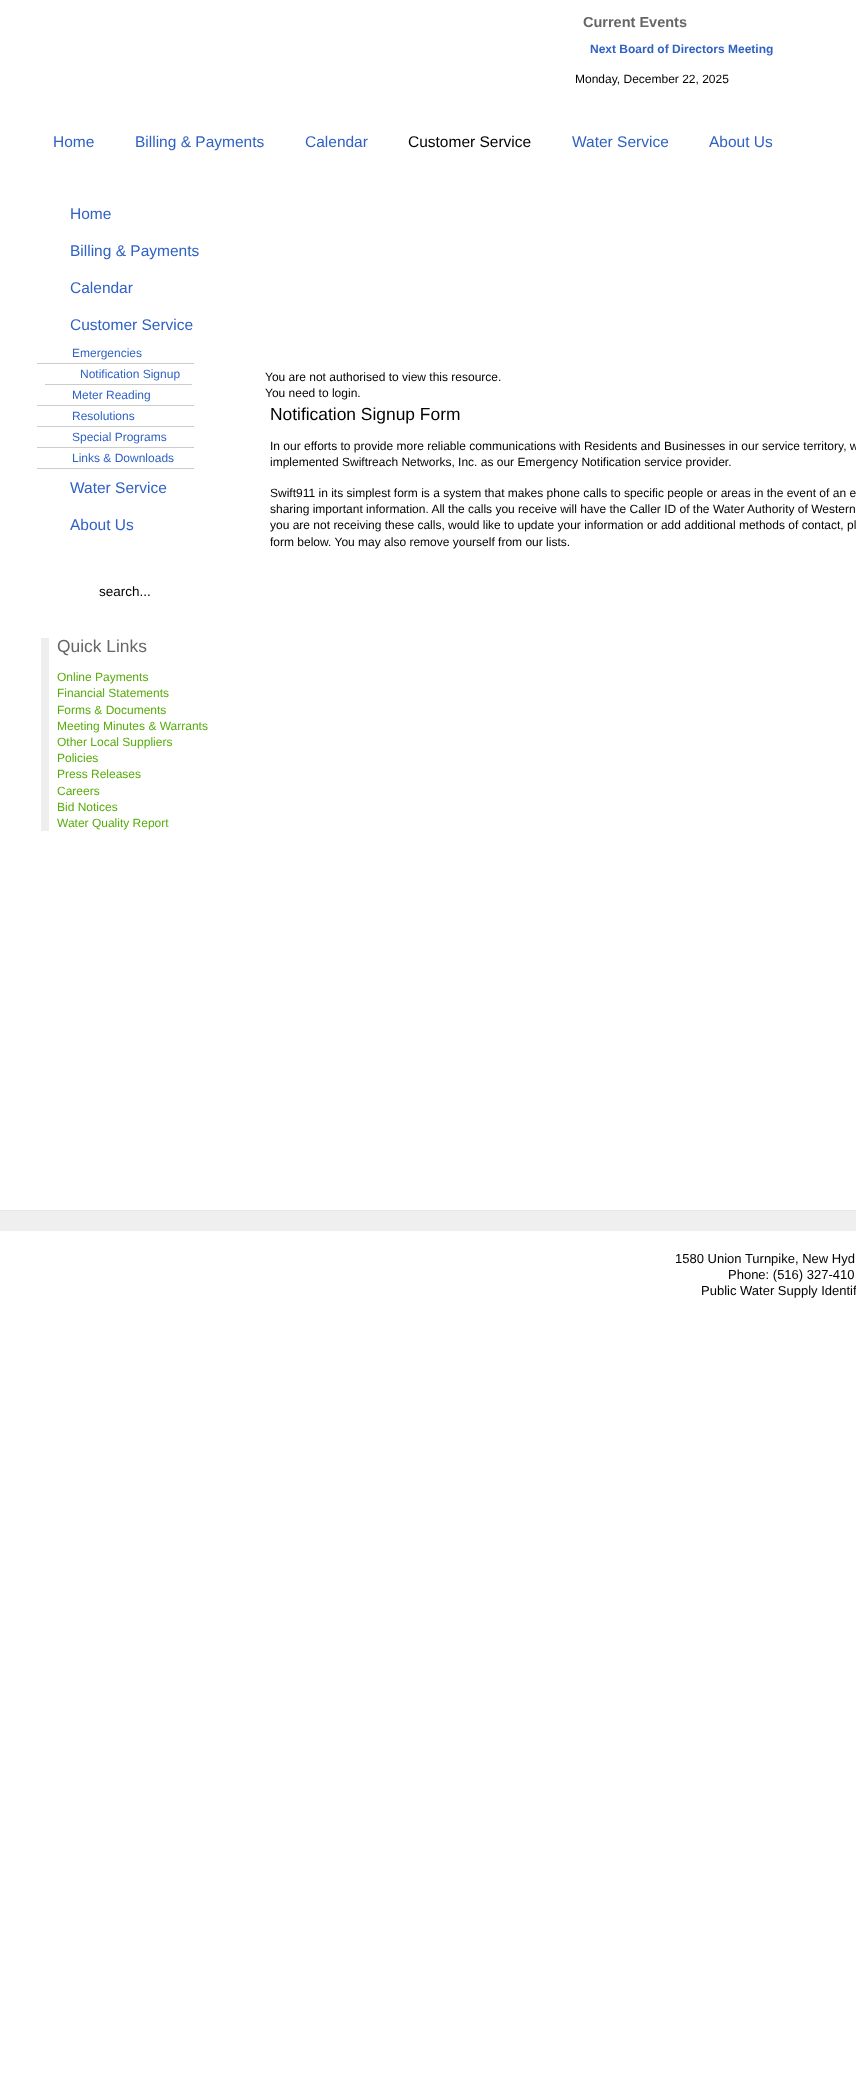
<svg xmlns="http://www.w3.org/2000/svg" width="856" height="2079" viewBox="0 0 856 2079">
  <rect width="100%" height="100%" fill="#fff"/>
  <path d="M37 363h157v1H37z" fill="#ccc"/>
  <path d="M45 384h147v1H45z" fill="#ccc"/>
  <path d="M37 405h157v1H37z" fill="#ccc"/>
  <path d="M37 426h157v1H37z" fill="#ccc"/>
  <path d="M37 447h157v1H37z" fill="#ccc"/>
  <path d="M37 468h157v1H37z" fill="#ccc"/>
  <path d="M41 638h8v193H41z" fill="#eee"/>
  <path d="M0 1211h856v20H0z" fill="#efefef"/>
  <path d="M0 1210h856v1H0z" fill="#e6e6e6"/>
  <text x="583" y="27" font-family="Liberation Sans" font-size="14.5" font-weight="bold" fill="#666">Current Events</text>
  <text x="590" y="53" font-family="Liberation Sans" font-size="12" font-weight="bold" fill="#3062c4">Next Board of Directors Meeting</text>
  <text x="575" y="83" font-family="Liberation Sans" font-size="12" fill="#000">Monday, December 22, 2025</text>
  <g font-family="Liberation Sans" font-size="15.5" fill="#3062c4">
    <text x="53" y="147">Home</text>
    <text x="135" y="147">Billing &amp; Payments</text>
    <text x="305" y="147">Calendar</text>
  </g>
  <text x="408" y="147" font-family="Liberation Sans" font-size="15.5" fill="#000">Customer Service</text>
  <g font-family="Liberation Sans" font-size="15.5" fill="#3062c4">
    <text x="572" y="147">Water Service</text>
    <text x="709" y="147">About Us</text>
    <text x="70" y="219">Home</text>
    <text x="70" y="256">Billing &amp; Payments</text>
    <text x="70" y="293">Calendar</text>
    <text x="70" y="330">Customer Service</text>
  </g>
  <g font-family="Liberation Sans" font-size="12" fill="#3062c4">
    <text x="72" y="357">Emergencies</text>
    <text x="80" y="378">Notification Signup</text>
    <text x="72" y="399">Meter Reading</text>
    <text x="72" y="420">Resolutions</text>
    <text x="72" y="441">Special Programs</text>
    <text x="72" y="462">Links &amp; Downloads</text>
  </g>
  <g font-family="Liberation Sans" font-size="15.5" fill="#3062c4">
    <text x="70" y="493">Water Service</text>
    <text x="70" y="530">About Us</text>
  </g>
  <text x="99" y="596" font-family="Liberation Sans" font-size="13.5" fill="#000">search...</text>
  <text x="57" y="652" font-family="Liberation Sans" font-size="17.4" fill="#666">Quick Links</text>
  <g font-family="Liberation Sans" font-size="12" fill="#57ac0b">
    <text x="57" y="681">Online Payments</text>
    <text x="57" y="697">Financial Statements</text>
    <text x="57" y="714">Forms &amp; Documents</text>
    <text x="57" y="730">Meeting Minutes &amp; Warrants</text>
    <text x="57" y="746">Other Local Suppliers</text>
    <text x="57" y="762">Policies</text>
    <text x="57" y="778">Press Releases</text>
    <text x="57" y="795">Careers</text>
    <text x="57" y="811">Bid Notices</text>
    <text x="57" y="827">Water Quality Report</text>
  </g>
  <g font-family="Liberation Sans" font-size="12" fill="#000">
    <text x="265" y="381">You are not authorised to view this resource.</text>
    <text x="265" y="397">You need to login.</text>
  </g>
  <text x="270" y="420" font-family="Liberation Sans" font-size="17.4" fill="#000">Notification Signup Form</text>
  <g font-family="Liberation Sans" font-size="12" fill="#000">
    <text x="270" y="450">In our efforts to provide more reliable communications with Residents and Businesses in our service territory, w</text>
    <text x="270" y="466">implemented Swiftreach Networks, Inc. as our Emergency Notification service provider.</text>
    <text x="270" y="497">Swift911 in its simplest form is a system that makes phone calls to specific people or areas in the event of an e</text>
    <text x="270" y="513">sharing important information. All the calls you receive will have the Caller ID of the Water Authority of Western</text>
    <text x="270" y="529">you are not receiving these calls, would like to update your information or add additional methods of contact, pl</text>
    <text x="270" y="546">form below. You may also remove yourself from our lists.</text>
  </g>
  <g font-family="Liberation Sans" font-size="13" fill="#000">
    <text x="675" y="1263">1580 Union Turnpike, New Hyd</text>
    <text x="728" y="1279">Phone: (516) 327-410</text>
    <text x="701" y="1295">Public Water Supply Identif</text>
  </g>
</svg>
